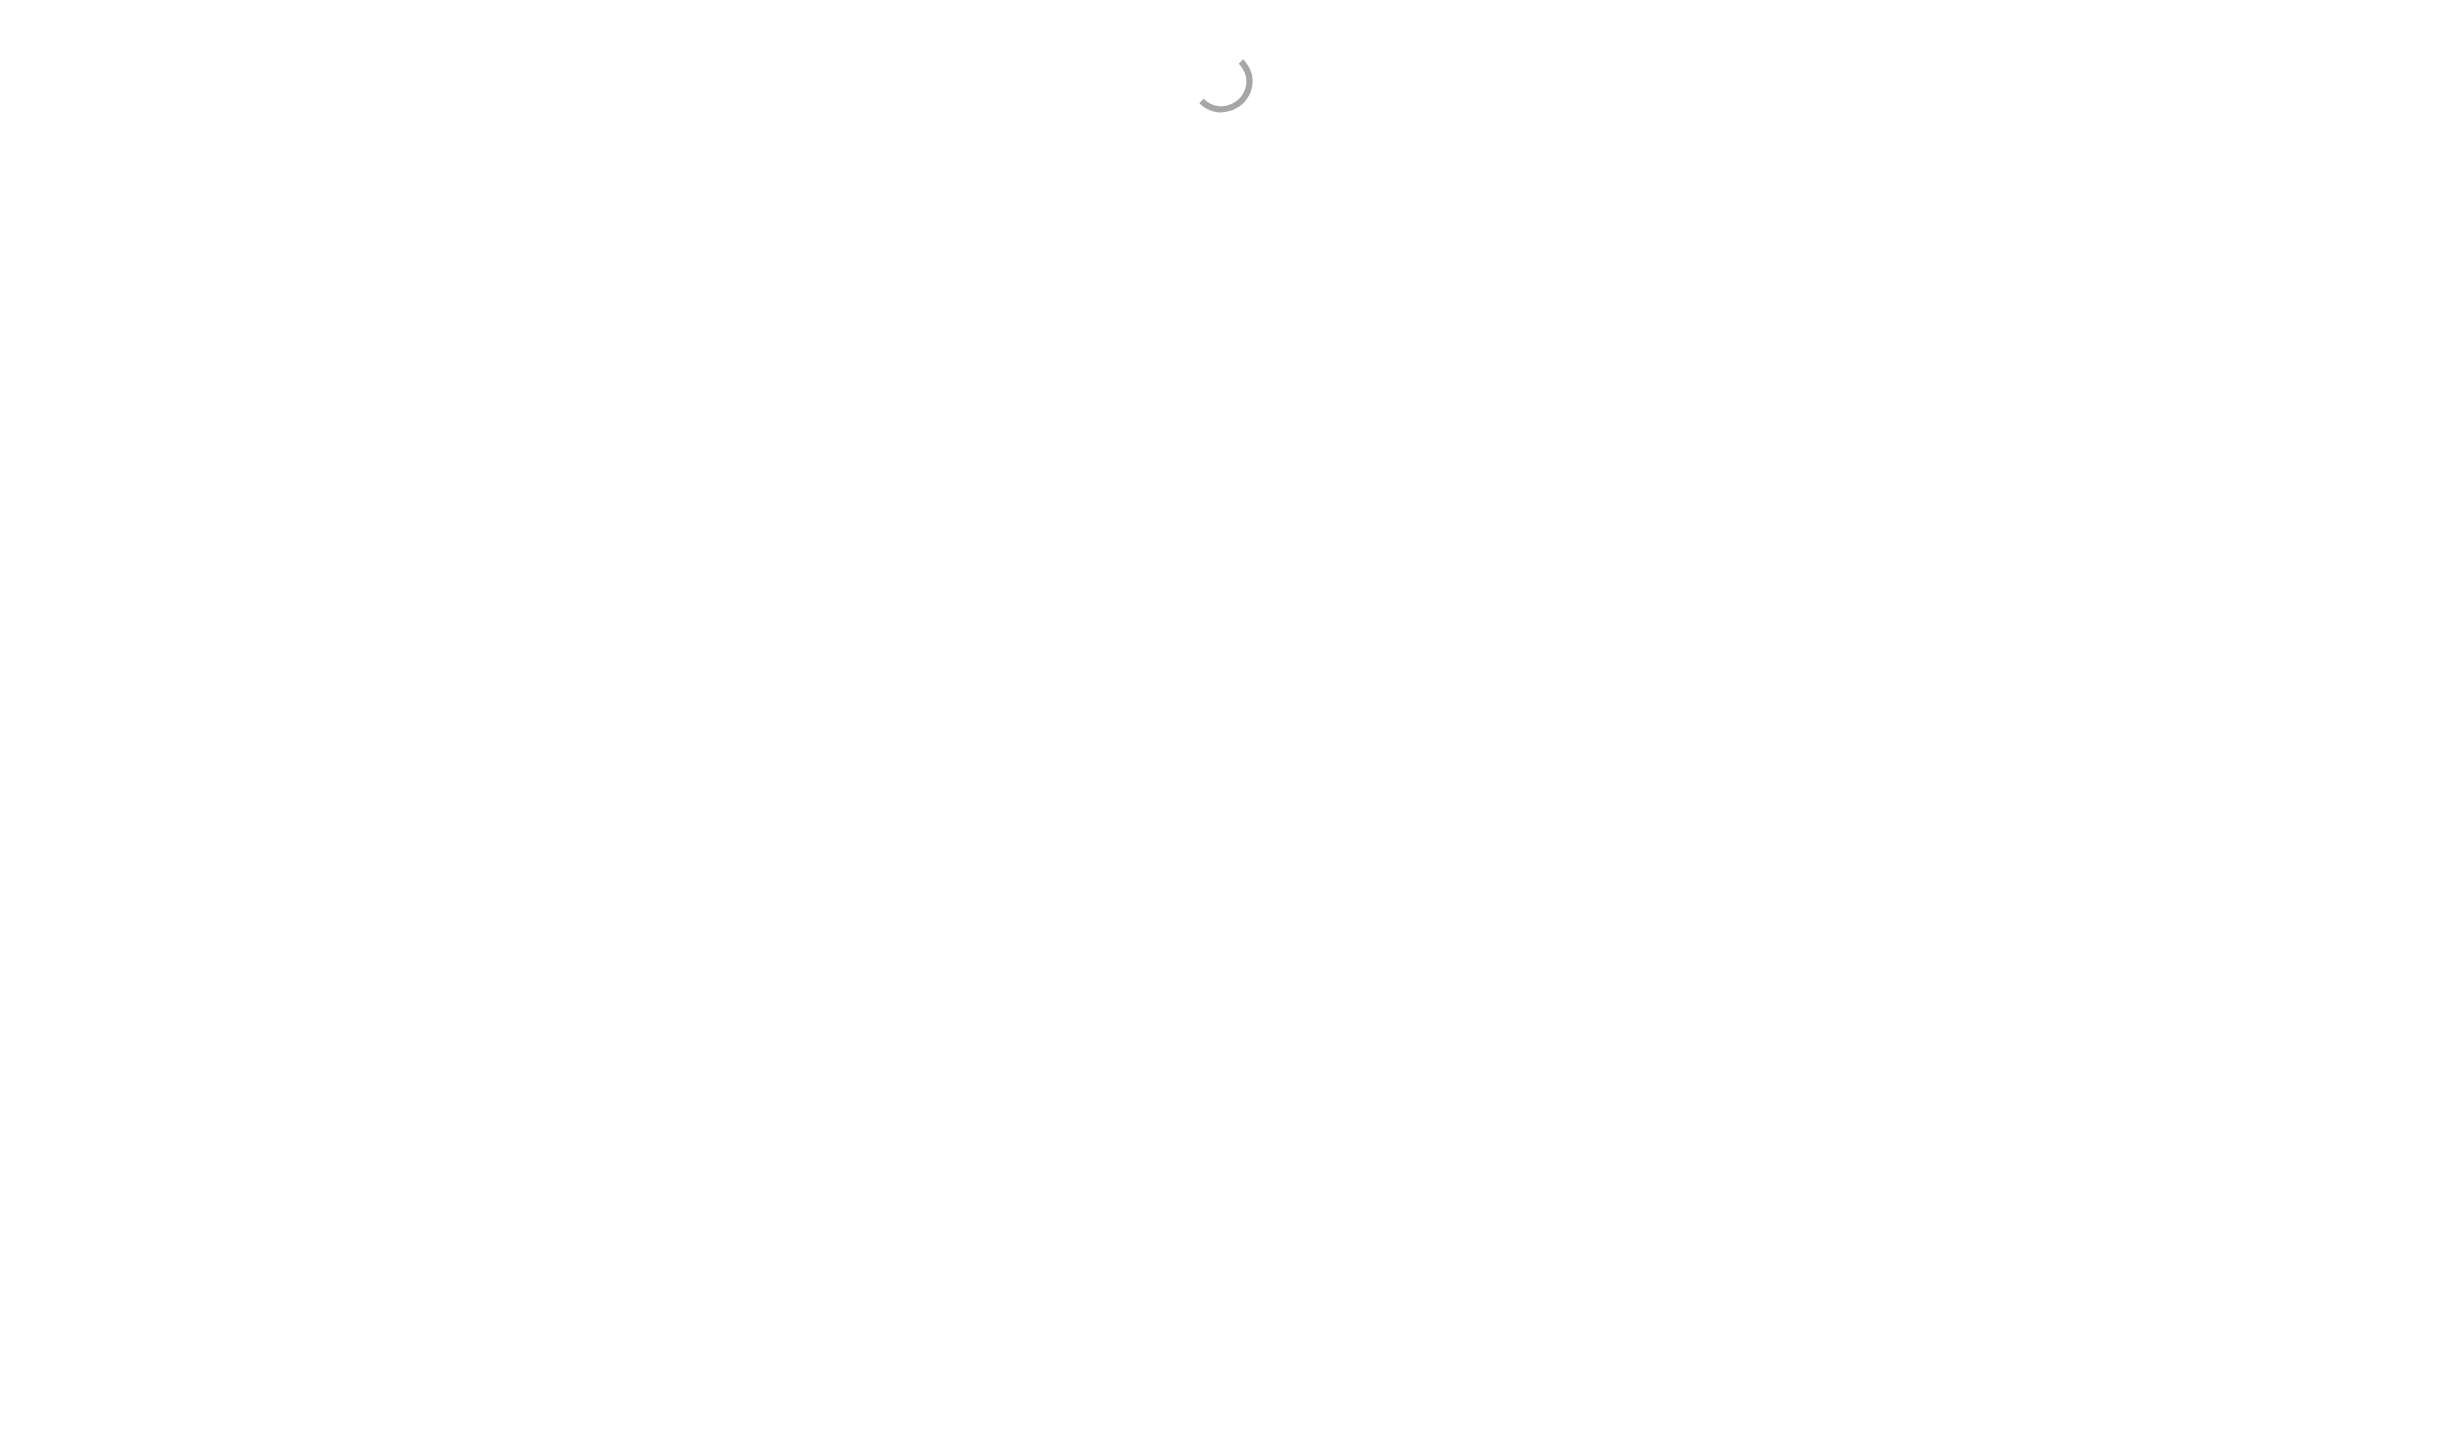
<svg xmlns="http://www.w3.org/2000/svg" width="2441" height="1452" viewBox="0 0 2441 1452">
  <rect width="100%" height="100%" fill="#fff"/>
  <path d="M1241 61.5C1245 65.5 1247.5 70.5 1249 75.5C1254 103 1221 120.5 1201.5 101" fill="none" stroke="#a6a6a6" stroke-width="6.2"/>
</svg>
